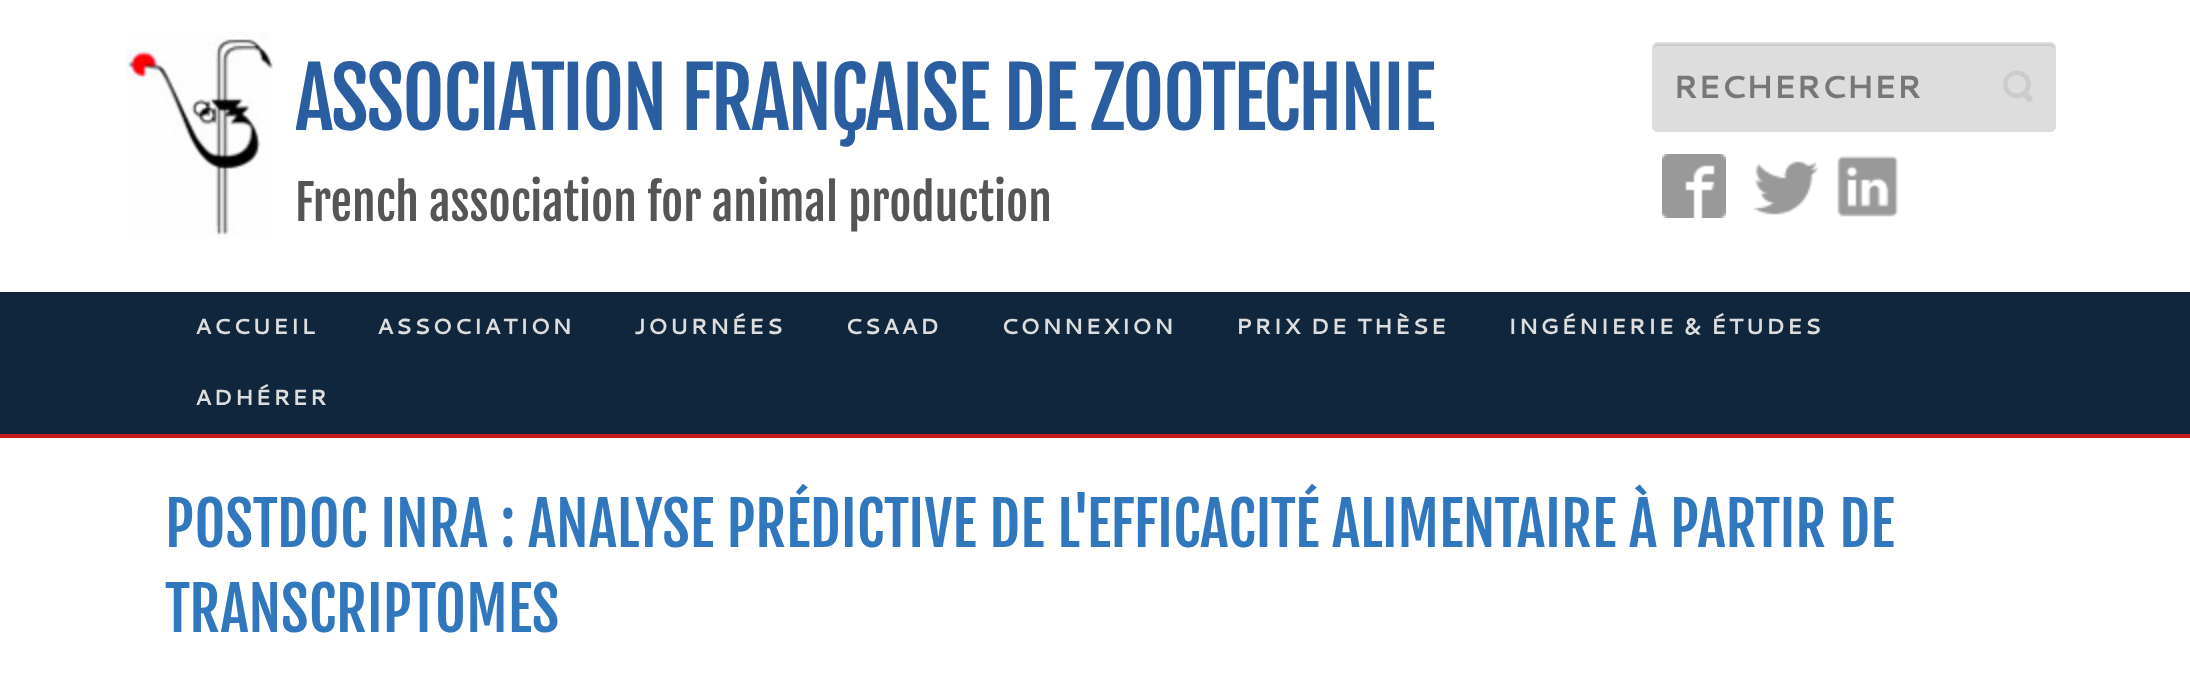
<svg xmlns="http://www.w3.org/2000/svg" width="2190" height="692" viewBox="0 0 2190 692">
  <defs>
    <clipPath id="clip1"><path d="M296 32h1138v228H296z"/></clipPath>
  </defs>
  <rect width="100%" height="100%" fill="#fff"/>
  <image x="126" y="32" width="147" height="206" href="img/1.png"/>
  <rect x="1652" y="42" width="404" height="90" rx="6" fill="#ddd"/>
  <path d="M1658 46H2050C2052 46 2054 48 2054 50C2054 47 2054 44 2050 44H1658C1654 44 1654 47 1654 50C1654 48 1656 46 1658 46Z" fill="#ccc"/>
  <rect x="1653" y="43" width="402" height="88" rx="5" fill="none" stroke="#ddd" stroke-width="2"/>
  <image x="2003" y="70" width="30" height="33" href="img/2.png"/>
  <image x="1662" y="154" width="64" height="64" href="img/3.png"/>
  <image x="1754" y="161" width="64" height="54" href="img/4.png"/>
  <image x="1837" y="155" width="62" height="62" href="img/5.png"/>
  <path d="M0 292h2190v142H0z" fill="#10263d"/>
  <path d="M0 434h2190v4H0z" fill="#c91d1d"/>
  <g clip-path="url(#clip1)">
    <text x="295" y="130" font-family="Fjalla One" font-size="82" letter-spacing="-2" fill="#2b5ea0">ASSOCIATION FRANÇAISE DE ZOOTECHNIE</text>
  </g>
  <text x="295" y="221" font-family="Fjalla One" font-size="48" fill="#555">French association for animal production</text>
  <text x="1673" y="98" font-family="Cantarell" font-size="32" font-weight="bold" fill="#777">RECHERCHER</text>
  <g font-family="Cantarell" font-size="22" font-weight="bold" letter-spacing="2" fill="#ddd">
    <text x="195" y="334">ACCUEIL</text>
    <text x="377" y="334">ASSOCIATION</text>
    <text x="634" y="334">JOURNÉES</text>
    <text x="845" y="334">CSAAD</text>
    <text x="1001" y="334">CONNEXION</text>
    <text x="1236" y="334">PRIX DE THÈSE</text>
    <text x="1508" y="334">INGÉNIERIE &amp; ÉTUDES</text>
    <text x="195" y="405">ADHÉRER</text>
  </g>
  <g font-family="Fjalla One" font-size="60" fill="#3177bd">
    <text x="165" y="547">POSTDOC INRA : ANALYSE PRÉDICTIVE DE L'EFFICACITÉ ALIMENTAIRE À PARTIR DE</text>
    <text x="165" y="632">TRANSCRIPTOMES</text>
  </g>
</svg>
